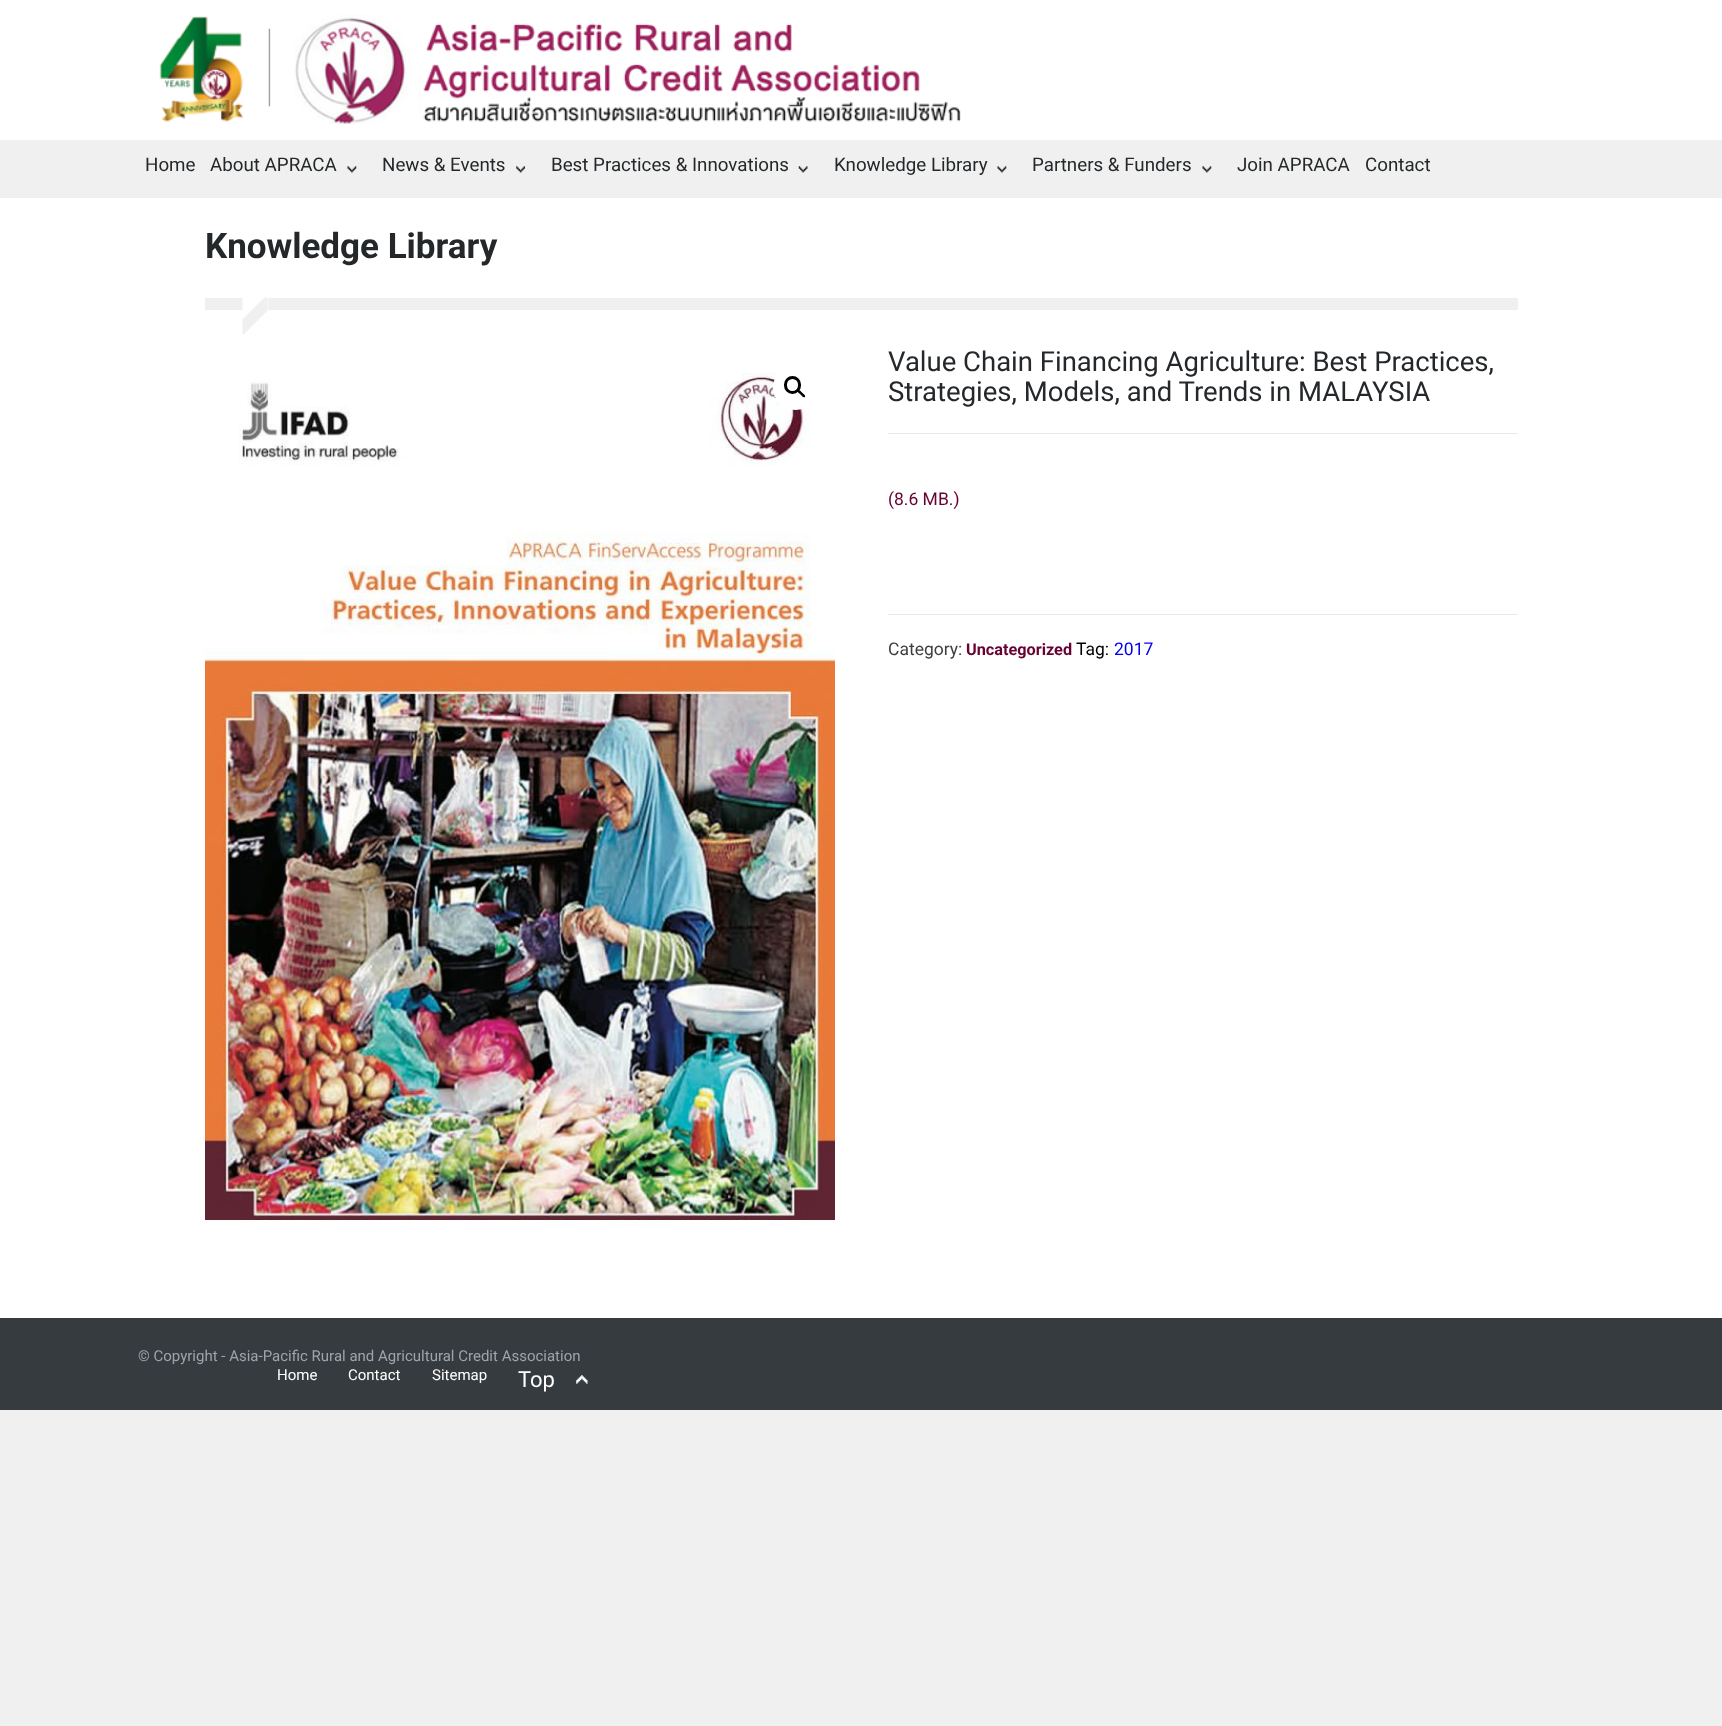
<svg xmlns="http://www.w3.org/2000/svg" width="1722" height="1726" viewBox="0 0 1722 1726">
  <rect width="100%" height="100%" fill="#f0f0f0"/>
  <path d="M0 0h1722v1318H0z" fill="#fff"/>
  <image x="159" y="14" width="802" height="111" href="img/1.png"/>
  <path d="M0 140h1722v58H0z" fill="#f0f0f0"/>
  <image x="347" y="166" width="10" height="7" href="img/2.png"/>
  <image x="516" y="166" width="9" height="7" href="img/3.png"/>
  <image x="798" y="166" width="10" height="7" href="img/4.png"/>
  <image x="997" y="166" width="10" height="7" href="img/2.png"/>
  <image x="1202" y="166" width="10" height="7" href="img/5.png"/>
  <path d="M205 298h38v12H205z" fill="#f0f0f0"/>
  <image x="242" y="297" width="26" height="38" href="img/6.png"/>
  <path d="M268 298h1250v12H268z" fill="#f0f0f0"/>
  <image x="205" y="372" width="630" height="848" href="img/7.png"/>
  <circle cx="795.5" cy="387.5" r="22.5" fill="#fff"/>
  <rect x="785.5" y="377.5" width="14" height="15" rx="7" fill="none" stroke="#000" stroke-width="3"/>
  <path d="M797.5 390C799 388.5 801.5 392 802 392.5C803 393.5 806 395.5 805 397C803.5 398.5 801 395 800.5 394.5C799.5 393.5 796.5 391.5 797.5 390Z" fill="#000"/>
  <path d="M888 433h630v1H888z" fill="#e9e9e9"/>
  <path d="M888 614h630v1H888z" fill="#e9e9e9"/>
  <path d="M0 1318h1722v92H0z" fill="#363b40"/>
  <image x="576" y="1375" width="12" height="9" href="img/8.png"/>
  <g font-family="Roboto" font-size="18.75" fill="#25282a">
    <text x="145" y="171">Home</text>
    <text x="210" y="171">About APRACA</text>
    <text x="382" y="171">News &amp; Events</text>
    <text x="551" y="171">Best Practices &amp; Innovations</text>
    <text x="834" y="171">Knowledge Library</text>
    <text x="1032" y="171">Partners &amp; Funders</text>
    <text x="1237" y="171">Join APRACA</text>
    <text x="1365" y="171">Contact</text>
  </g>
  <text x="205" y="258" font-family="Roboto" font-size="35" font-weight="bold" fill="#25282a">Knowledge Library</text>
  <g font-family="Roboto" font-size="27.5" fill="#25282a">
    <text x="888" y="371">Value Chain Financing Agriculture: Best Practices,</text>
    <text x="888" y="401">Strategies, Models, and Trends in MALAYSIA</text>
  </g>
  <text x="888" y="505" font-family="Roboto" font-size="17.5" fill="#670333">(8.6 MB.)</text>
  <text x="888" y="655" font-family="Roboto" font-size="17.5" fill="#3e3e3e">Category:</text>
  <text x="966" y="655" font-family="Roboto" font-size="16.25" font-weight="bold" fill="#670333">Uncategorized</text>
  <text x="1076" y="655" font-family="Roboto" font-size="17.5" fill="#000">Tag:</text>
  <text x="1114" y="655" font-family="Roboto" font-size="17.5" fill="#00e">2017</text>
  <text x="138" y="1361" font-family="Roboto" font-size="15" fill="#9da4ab">© Copyright - Asia-Pacific Rural and Agricultural Credit Association</text>
  <g font-family="Roboto" font-size="15" fill="#fff">
    <text x="277" y="1380">Home</text>
    <text x="348" y="1380">Contact</text>
    <text x="432" y="1380">Sitemap</text>
  </g>
  <text x="518" y="1387" font-family="Roboto" font-size="22" fill="#fff">Top</text>
</svg>
